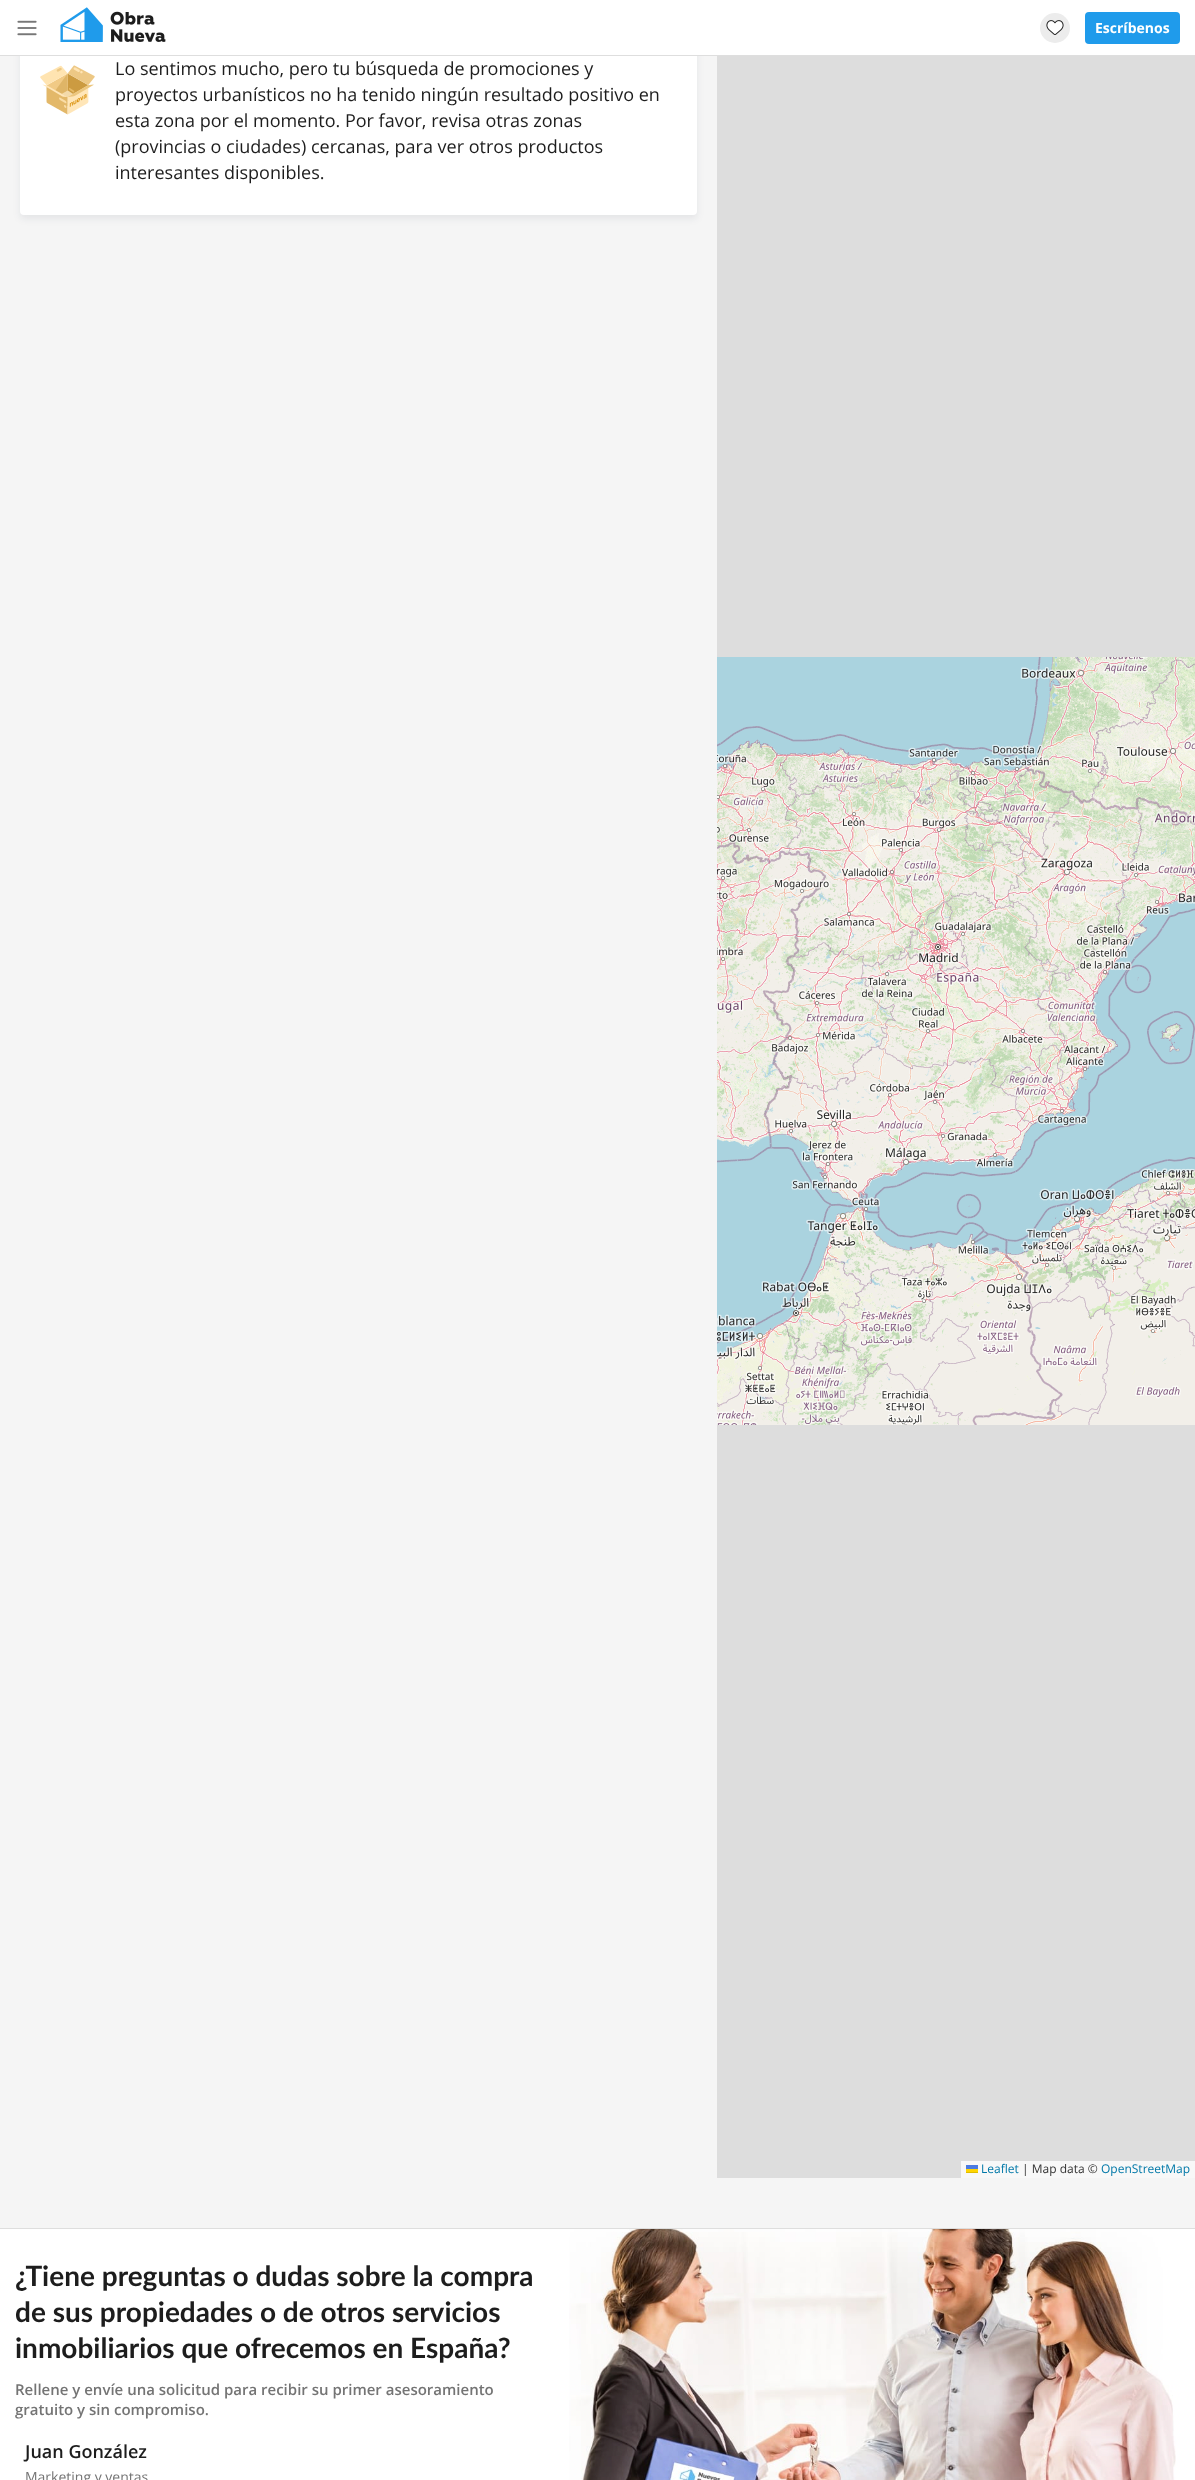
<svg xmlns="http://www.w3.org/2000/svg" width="1195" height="2480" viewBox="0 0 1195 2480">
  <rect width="100%" height="100%" fill="#f5f5f5"/>
  <rect x="20" y="39" width="677" height="180" rx="4" fill="#09173312" filter="blur(3.5px)"/>
  <rect x="20" y="35" width="677" height="180" rx="4" fill="#fff"/>
  <path d="M0 0h1195v55H0z" fill="#fff"/>
  <path d="M0 55h1195v1H0z" fill="#dedede"/>
  <image x="17" y="20" width="20" height="16" href="img/1.png"/>
  <image x="60" y="7" width="106" height="35" href="img/2.png"/>
  <circle cx="1055" cy="28" r="15" fill="#ececec"/>
  <image x="1046" y="20" width="18" height="15" href="img/3.png"/>
  <rect x="1085" y="12" width="95" height="32" rx="4" fill="#1f9beb"/>
  <path d="M0 2228h1195v1H0z" fill="#dedede"/>
  <image x="40" y="65" width="55" height="50" href="img/4.png"/>
  <path d="M717 56h478v2122H717z" fill="#ddd"/>
  <image x="717" y="657" width="134" height="256" href="img/5.png"/>
  <image x="851" y="657" width="256" height="256" href="img/6.png"/>
  <image x="1107" y="657" width="88" height="256" href="img/7.png"/>
  <image x="717" y="913" width="134" height="256" href="img/8.png"/>
  <image x="851" y="913" width="256" height="256" href="img/9.png"/>
  <image x="1107" y="913" width="88" height="256" href="img/10.png"/>
  <image x="717" y="1169" width="134" height="256" href="img/11.png"/>
  <image x="851" y="1169" width="256" height="256" href="img/12.png"/>
  <image x="1107" y="1169" width="88" height="256" href="img/13.png"/>
  <path d="M961 2161h234v17H961z" fill="#f8f8f8"/>
  <path d="M966 2165h12v4H966z" fill="#4c7be1"/>
  <path d="M966 2169h12v3H966z" fill="#ffd500"/>
  <path d="M966 2172h12v1H966z" fill="#e0bc00"/>
  <path d="M0 2229h1195v251H0z" fill="#fff"/>
  <image x="569" y="2229" width="607" height="251" href="img/14.png"/>
  <text x="1095" y="33" font-family="Open Sans" font-size="14" font-weight="bold" fill="#fff">Escríbenos</text>
  <g font-family="Open Sans" font-size="18" fill="#1d1d1d">
    <text x="115" y="75">Lo sentimos mucho, pero tu búsqueda de promociones y</text>
    <text x="115" y="101">proyectos urbanísticos no ha tenido ningún resultado positivo en</text>
    <text x="115" y="127">esta zona por el momento. Por favor, revisa otras zonas</text>
    <text x="115" y="153">(provincias o ciudades) cercanas, para ver otros productos</text>
    <text x="115" y="179">interesantes disponibles.</text>
  </g>
  <text x="981" y="2173" font-family="Open Sans" font-size="12" fill="#0078a8">Leaflet</text>
  <text x="1022" y="2173" font-family="Open Sans" font-size="12" fill="#333">| Map data ©</text>
  <text x="1101" y="2173" font-family="Open Sans" font-size="12" fill="#0078a8">OpenStreetMap</text>
  <g font-family="Lato" font-size="28" font-weight="bold" fill="#1d1d1d">
    <text x="15" y="2286">¿Tiene preguntas o dudas sobre la compra</text>
    <text x="15" y="2322">de sus propiedades o de otros servicios</text>
    <text x="15" y="2358">inmobiliarios que ofrecemos en España?</text>
  </g>
  <g font-family="Open Sans" font-size="15" font-weight="600" fill="#747474">
    <text x="15" y="2395">Rellene y envíe una solicitud para recibir su primer asesoramiento</text>
    <text x="15" y="2415">gratuito y sin compromiso.</text>
  </g>
  <text x="25" y="2458" font-family="Open Sans" font-size="18" font-weight="600" fill="#1d1d1d">Juan González</text>
  <text x="25" y="2482" font-family="Open Sans" font-size="14" fill="#747474">Marketing y ventas</text>
</svg>
